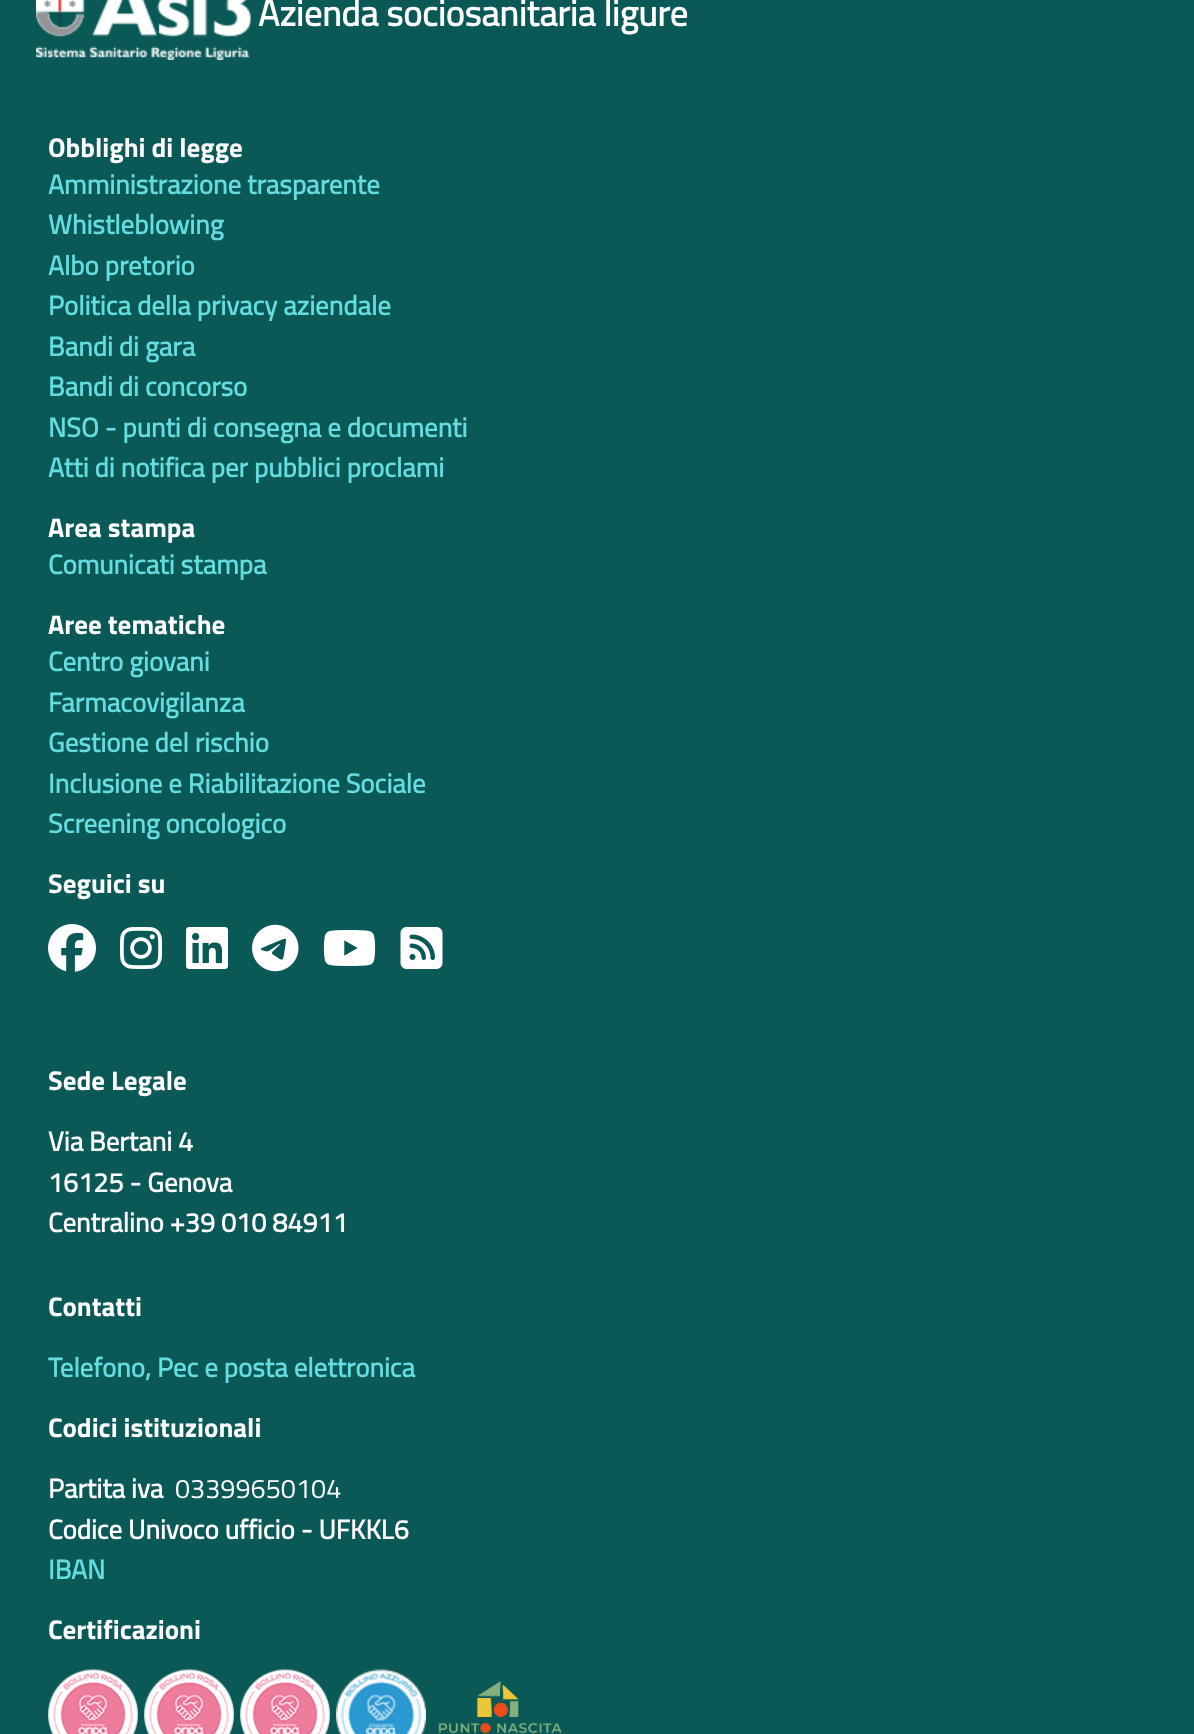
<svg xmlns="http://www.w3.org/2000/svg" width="1194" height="1734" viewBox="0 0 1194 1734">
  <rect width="100%" height="100%" fill="#0a5956"/>
  <image x="36" y="0" width="215" height="60" href="img/1.png"/>
  <image x="48" y="924" width="48" height="48" href="img/2.png"/>
  <image x="120" y="927" width="42" height="42" href="img/3.png"/>
  <image x="186" y="927" width="42" height="42" href="img/4.png"/>
  <image x="252" y="924" width="47" height="48" href="img/5.png"/>
  <image x="323" y="930" width="53" height="36" href="img/6.png"/>
  <image x="400" y="927" width="43" height="42" href="img/7.png"/>
  <image x="48" y="1669" width="90" height="65" href="img/8.png"/>
  <image x="144" y="1669" width="90" height="65" href="img/8.png"/>
  <image x="240" y="1669" width="90" height="65" href="img/9.png"/>
  <image x="336" y="1669" width="90" height="65" href="img/10.png"/>
  <image x="438" y="1681" width="124" height="53" href="img/11.png"/>
  <text x="258" y="26" font-family="Titillium Web" font-size="36" font-weight="bold" fill="#fff">Azienda sociosanitaria ligure</text>
  <text x="48" y="157" font-family="'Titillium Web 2'" font-size="27" font-weight="bold" fill="#fff">Obblighi di legge</text>
  <g font-family="Titillium Web" font-size="27" font-weight="bold" fill="#65dcdf">
    <text x="48" y="194">Amministrazione trasparente</text>
    <text x="48" y="234">Whistleblowing</text>
    <text x="48" y="275">Albo pretorio</text>
    <text x="48" y="315">Politica della privacy aziendale</text>
    <text x="48" y="356">Bandi di gara</text>
    <text x="48" y="396">Bandi di concorso</text>
    <text x="48" y="437">NSO - punti di consegna e documenti</text>
    <text x="48" y="477">Atti di notifica per pubblici proclami</text>
  </g>
  <text x="48" y="537" font-family="'Titillium Web 2'" font-size="27" font-weight="bold" fill="#fff">Area stampa</text>
  <text x="48" y="574" font-family="Titillium Web" font-size="27" font-weight="bold" fill="#65dcdf">Comunicati stampa</text>
  <text x="48" y="634" font-family="'Titillium Web 2'" font-size="27" font-weight="bold" fill="#fff">Aree tematiche</text>
  <g font-family="Titillium Web" font-size="27" font-weight="bold" fill="#65dcdf">
    <text x="48" y="671">Centro giovani</text>
    <text x="48" y="712">Farmacovigilanza</text>
    <text x="48" y="752">Gestione del rischio</text>
    <text x="48" y="793">Inclusione e Riabilitazione Sociale</text>
    <text x="48" y="833">Screening oncologico</text>
  </g>
  <g font-family="'Titillium Web 2'" font-size="27" font-weight="bold" fill="#fff">
    <text x="48" y="893">Seguici su</text>
    <text x="48" y="1090">Sede Legale</text>
  </g>
  <g font-family="Titillium Web" font-size="27" font-weight="bold" fill="#fff">
    <text x="48" y="1151">Via Bertani 4</text>
    <text x="48" y="1192">16125 - Genova</text>
    <text x="48" y="1232">Centralino +39 010 84911</text>
  </g>
  <text x="48" y="1316" font-family="'Titillium Web 2'" font-size="27" font-weight="bold" fill="#fff">Contatti</text>
  <text x="48" y="1377" font-family="Titillium Web" font-size="27" font-weight="bold" fill="#65dcdf">Telefono, Pec e posta elettronica</text>
  <text x="48" y="1437" font-family="'Titillium Web 2'" font-size="27" font-weight="bold" fill="#fff">Codici istituzionali</text>
  <text x="48" y="1498" font-family="Titillium Web" font-size="27" font-weight="bold" fill="#fff">Partita iva</text>
  <text x="175" y="1498" font-family="Titillium Web" font-size="27" fill="#fff">03399650104</text>
  <text x="48" y="1539" font-family="Titillium Web" font-size="27" font-weight="bold" fill="#fff">Codice Univoco ufficio - UFKKL6</text>
  <text x="48" y="1579" font-family="Titillium Web" font-size="27" font-weight="bold" fill="#65dcdf">IBAN</text>
  <text x="48" y="1639" font-family="'Titillium Web 2'" font-size="27" font-weight="bold" fill="#fff">Certificazioni</text>
</svg>
